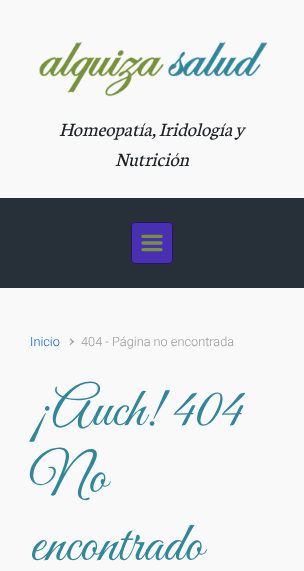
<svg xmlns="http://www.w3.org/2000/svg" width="304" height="571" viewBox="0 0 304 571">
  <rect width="100%" height="100%" fill="#f9f9f9"/>
  <image x="39" y="41" width="229" height="56" href="img/1.png"/>
  <path d="M0 198h304v90H0z" fill="#273039"/>
  <rect x="131" y="222" width="42" height="42" rx="4" fill="#492fb1"/>
  <rect x="131.5" y="222.5" width="41" height="41" rx="3.5" fill="none" stroke="#00000080"/>
  <image x="141" y="234" width="22" height="18" href="img/2.png"/>
  <path d="M69.5 339L70.5 338.5L74 341.5L73 342.5Z" fill="#999"/>
  <path d="M69.5 344.5L73 341L74 341.5L70.5 345Z" fill="#999"/>
  <g font-family="Neuton" font-size="20" font-style="italic" fill="#212529">
    <text x="59" y="136">Homeopatía, Iridología y</text>
    <text x="115" y="166">Nutrición</text>
  </g>
  <text x="30" y="346" font-family="Roboto" font-size="12.75" font-weight="300" fill="#085fe0">Inicio</text>
  <text x="81" y="346" font-family="Roboto" font-size="12.75" font-weight="300" fill="#999">404 - Página no encontrada</text>
  <g font-family="Great Vibes" font-size="56" fill="#31869b">
    <text x="30" y="425">¡Auch! 404</text>
    <text x="30" y="492">No</text>
    <text x="30" y="560">encontrado</text>
  </g>
</svg>
